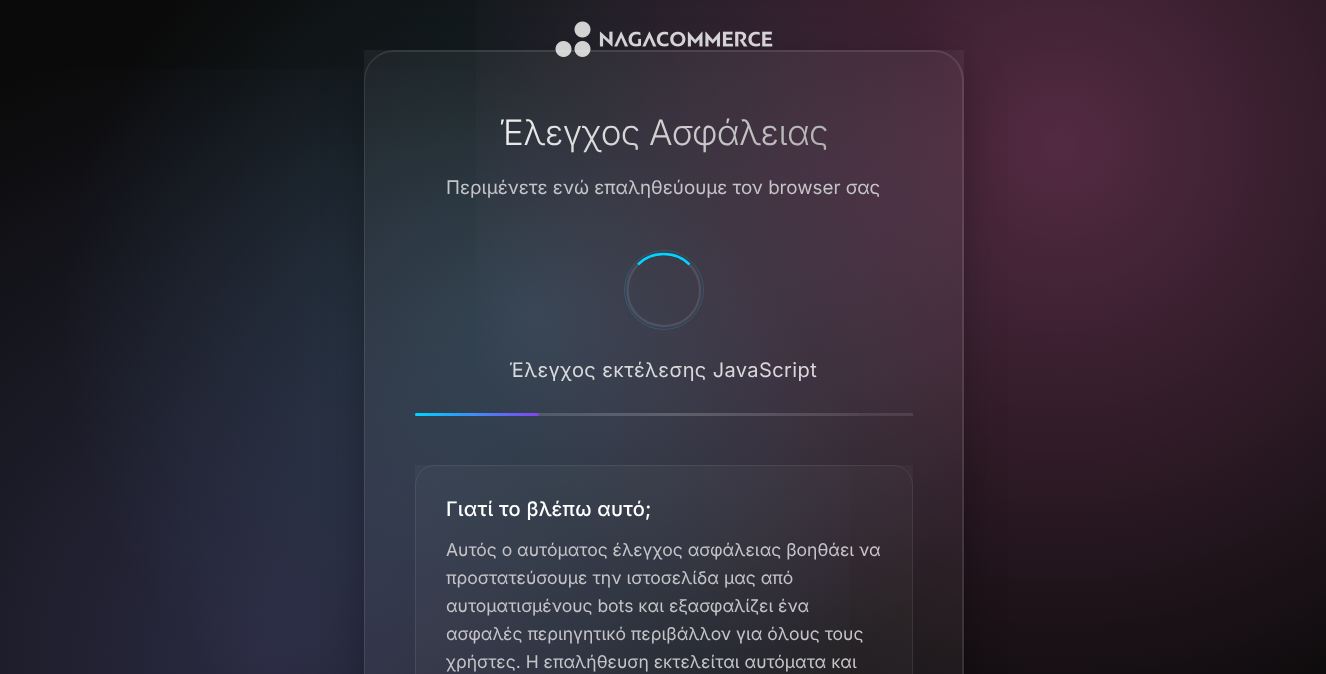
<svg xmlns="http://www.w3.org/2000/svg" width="1326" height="674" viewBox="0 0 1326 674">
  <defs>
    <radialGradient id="g1" gradientUnits="userSpaceOnUse" cx="531" cy="315" r="945"><stop offset="0" stop-color="#20343b"/><stop offset="0.5" stop-color="#0a0a0a"/></radialGradient>
    <radialGradient id="g2" gradientUnits="userSpaceOnUse" cx="1061" cy="145" r="1260"><stop offset="0" stop-color="#ff77c6" stop-opacity="0.3"/><stop offset="0.5" stop-color="#ff77c6" stop-opacity="0"/></radialGradient>
    <radialGradient id="g3" gradientUnits="userSpaceOnUse" cx="265" cy="654" r="1260"><stop offset="0" stop-color="#7877c6" stop-opacity="0.3"/><stop offset="0.5" stop-color="#7877c6" stop-opacity="0"/></radialGradient>
    <clipPath id="clip1"><path d="M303 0H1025V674H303ZM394 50H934C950.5 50 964 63.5 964 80V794C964 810.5 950.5 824 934 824H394C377.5 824 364 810.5 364 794V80C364 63.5 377.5 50 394 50Z" clip-rule="evenodd"/></clipPath>
    <linearGradient id="g4" gradientUnits="userSpaceOnUse" x1="528" y1="-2.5" x2="798" y2="268"><stop offset="0" stop-color="#fff"/><stop offset="1" stop-color="#a0a0a0"/></linearGradient>
    <linearGradient id="g5" gradientUnits="userSpaceOnUse" x1="415" y1="414" x2="663" y2="414"><stop offset="0" stop-color="#00d4ff"/><stop offset="0.5" stop-color="#7c3aed"/><stop offset="1" stop-color="#00d4ff"/></linearGradient>
    <linearGradient id="g6" gradientUnits="userSpaceOnUse" x1="415" y1="414" x2="913" y2="414"><stop offset="0" stop-color="#fff" stop-opacity="0"/><stop offset="0.5" stop-color="#fff" stop-opacity="0.1"/><stop offset="1" stop-color="#fff" stop-opacity="0"/></linearGradient>
  </defs>
  <rect width="100%" height="100%" fill="#fff"/>
  <path d="M0 0h1326v674H0z" fill="url(#g1)"/>
  <path d="M476 0h850v674H476z" fill="url(#g2)"/>
  <path d="M0 69h850v605H0z" fill="url(#g3)"/>
  <g clip-path="url(#clip1)">
    <rect x="364" y="60" width="600" height="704" rx="30" fill="#0000004d" filter="blur(20px)"/>
  </g>
  <path d="M364 50h600v624H364z" fill="#ffffff0d"/>
  <path d="M394 52H934C950 52 962 65 962 81V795C962 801 960 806 957 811C961 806 963 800 963 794V80C963 64 950 51 934 51H394C378 51 365 64 365 80V81C365 65 378 52 394 52Z" fill="#ffffff1a"/>
  <rect x="364.5" y="50.5" width="599" height="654" rx="29.5" fill="none" stroke="#ffffff1a"/>
  <image x="555" y="21" width="218" height="36" href="img/1.png"/>
  <path d="M638 264.5C652 250.5 675.5 250.5 689.5 264.5" fill="none" stroke="#00d4ff" stroke-width="2.5"/>
  <path d="M689.5 264.5C698 273 701.5 285.5 699.5 297C691 339.5 627.5 333.5 627.5 290C627.5 280.5 631.5 271 638 264.5" fill="none" stroke="#ffffff1a" stroke-width="2.5"/>
  <circle cx="664" cy="290" r="39.5" fill="none" stroke="#00d4ff33"/>
  <path d="M415 413h498v3H415z" fill="#ffffff1a"/>
  <rect x="415" y="413" width="124" height="3" rx="1.5" fill="url(#g5)"/>
  <path d="M469 413h390v3H469z" fill="url(#g6)"/>
  <path d="M415 465h498v209H415z" fill="#ffffff08"/>
  <rect x="415.5" y="465.5" width="497" height="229" rx="19.5" fill="none" stroke="#ffffff14"/>
  <text x="499" y="145" font-family="Inter" font-size="35" font-weight="300" letter-spacing="-0.6" fill="url(#g4)">Έλεγχος Ασφάλειας</text>
  <text x="446" y="194" font-family="Inter" font-size="18.75" fill="#c5c4c8">Περιμένετε ενώ επαληθεύουμε τον browser σας</text>
  <text x="509" y="377" font-family="Inter" font-size="20" letter-spacing="0.4" fill="#d9d9dc">Έλεγχος εκτέλεσης JavaScript</text>
  <text x="446" y="516" font-family="Inter" font-size="20" font-weight="500" letter-spacing="0.25" fill="#fff">Γιατί το βλέπω αυτό;</text>
  <g font-family="Inter" font-size="17.5" fill="#c5c4c8">
    <text x="446" y="556">Αυτός ο αυτόματος έλεγχος ασφάλειας βοηθάει να</text>
    <text x="446" y="584">προστατεύσουμε την ιστοσελίδα μας από</text>
    <text x="446" y="612">αυτοματισμένους bots και εξασφαλίζει ένα</text>
    <text x="446" y="640">ασφαλές περιηγητικό περιβάλλον για όλους τους</text>
    <text x="446" y="668">χρήστες. Η επαλήθευση εκτελείται αυτόματα και</text>
  </g>
</svg>
